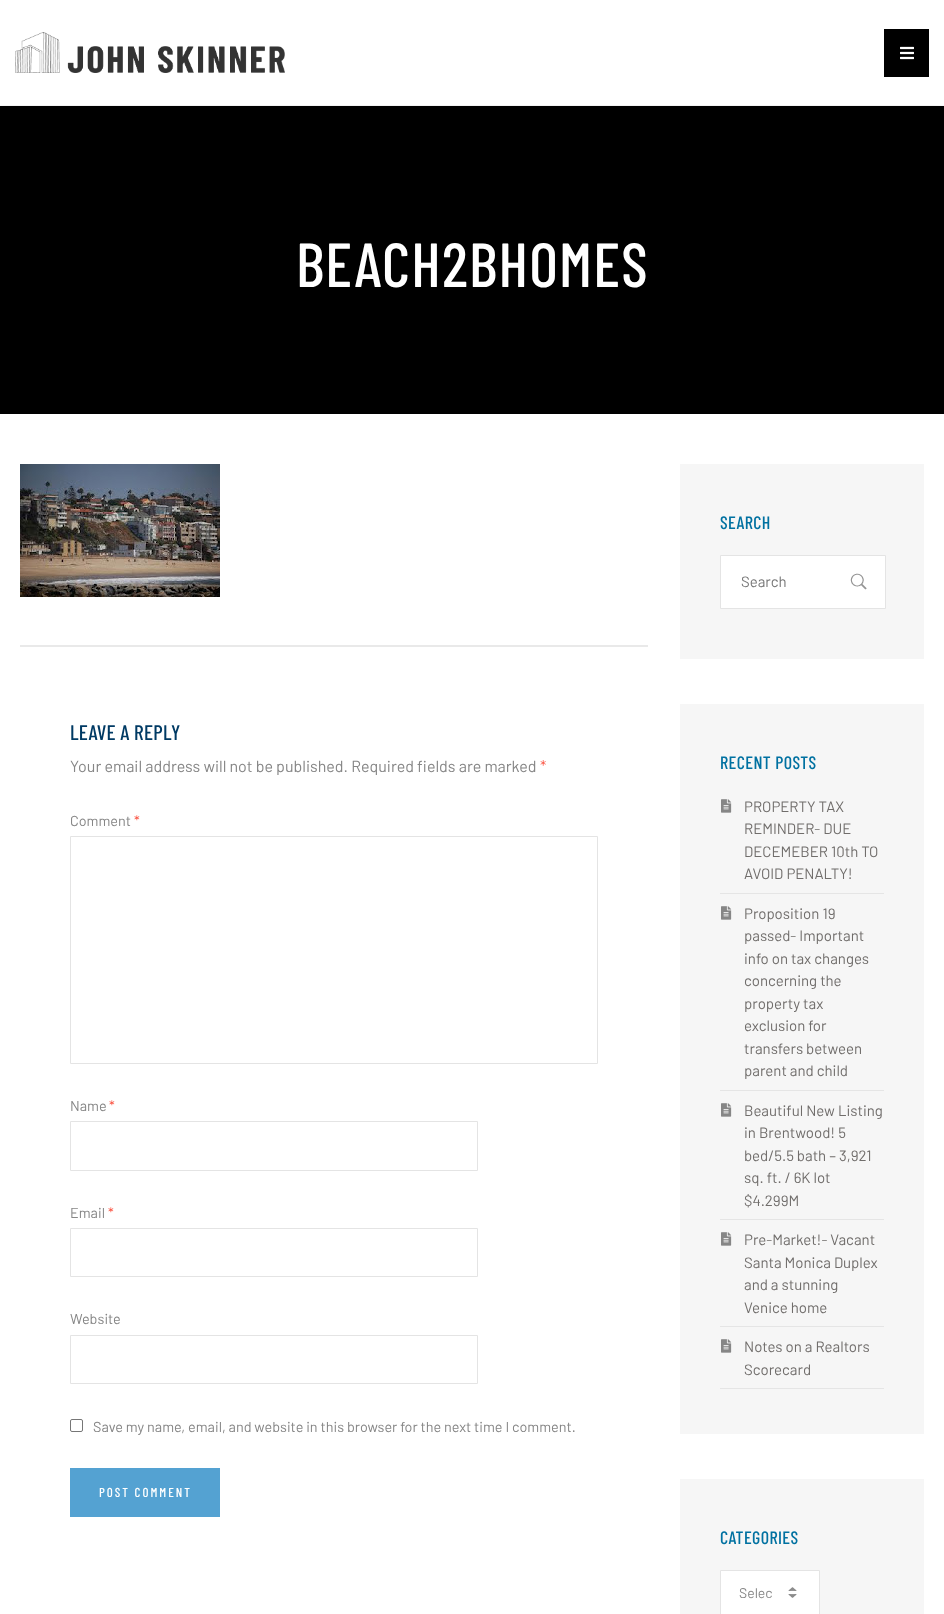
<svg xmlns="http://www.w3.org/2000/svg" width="944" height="1614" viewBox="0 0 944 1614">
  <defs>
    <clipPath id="clip1"><path d="M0 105h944v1H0z"/></clipPath>
  </defs>
  <rect width="100%" height="100%" fill="#fff"/>
  <g clip-path="url(#clip1)">
    <path d="M0 0h944v105H0z" fill="#0000001c" filter="blur(10px)"/>
  </g>
  <image x="15" y="32" width="270" height="41" href="img/1.png"/>
  <path d="M884 29h45v48H884z" fill="#000"/>
  <image x="900" y="46" width="14" height="14" href="img/2.png"/>
  <path d="M0 106h944v308H0z" fill="#000"/>
  <image x="20" y="464" width="200" height="133" href="img/3.png"/>
  <path d="M20 645h628v2H20z" fill="#e9e9e9"/>
  <path d="M70.5 836.5h527v227H70.5z" fill="none" stroke="#e4e4e4"/>
  <path d="M70.5 1121.5h407v49H70.5z" fill="none" stroke="#e4e4e4"/>
  <path d="M70.5 1228.5h407v48H70.5z" fill="none" stroke="#e4e4e4"/>
  <path d="M70.5 1335.5h407v48H70.5z" fill="none" stroke="#e4e4e4"/>
  <rect x="70.5" y="1419.5" width="12" height="12" rx="1.5" fill="none" stroke="#767676"/>
  <path d="M70 1468h150v49H70z" fill="#54a2d2"/>
  <path d="M680 464h244v195H680z" fill="#f6f6f6"/>
  <path d="M721 556h164v52H721z" fill="#fff"/>
  <image x="850" y="573" width="17" height="17" href="img/4.png"/>
  <path d="M720.5 555.5h165v53H720.5z" fill="none" stroke="#e4e4e4"/>
  <path d="M680 704h244v730H680z" fill="#f6f6f6"/>
  <path d="M720 893h164v1H720z" fill="#e5e5e5"/>
  <image x="721" y="799" width="11" height="14" href="img/5.png"/>
  <path d="M720 1090h164v1H720z" fill="#e5e5e5"/>
  <image x="721" y="906" width="11" height="14" href="img/5.png"/>
  <path d="M720 1219h164v1H720z" fill="#e5e5e5"/>
  <image x="721" y="1103" width="11" height="14" href="img/5.png"/>
  <path d="M720 1326h164v1H720z" fill="#e5e5e5"/>
  <image x="721" y="1232" width="11" height="14" href="img/5.png"/>
  <path d="M720 1388h164v1H720z" fill="#e5e5e5"/>
  <image x="721" y="1339" width="11" height="14" href="img/5.png"/>
  <path d="M680 1479h244v135H680z" fill="#f6f6f6"/>
  <path d="M721 1571h98v43H721z" fill="#fff"/>
  <image x="788" y="1587" width="9" height="11" href="img/6.png"/>
  <path d="M720.5 1570.5h99v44H720.5z" fill="none" stroke="#e4e4e4"/>
  <text x="296" y="287" font-family="Barlow Condensed" font-size="62" font-weight="500" letter-spacing="1.25" fill="#fff">BEACH2BHOMES</text>
  <text x="70" y="740" font-family="Barlow Condensed" font-size="21" font-weight="500" letter-spacing="0.25" fill="#003a64">LEAVE A REPLY</text>
  <text x="70" y="772" font-family="Barlow" font-size="16" fill="#868686">Your email address will not be published. Required fields are marked</text>
  <text x="540" y="772" font-family="Barlow" font-size="16" fill="#fa4e3c">*</text>
  <text x="70" y="826" font-family="Barlow" font-size="14.4" fill="#868686">Comment</text>
  <text x="134" y="826" font-family="Barlow" font-size="14.4" fill="#fa4e3c">*</text>
  <text x="70" y="1111" font-family="Barlow" font-size="14.4" fill="#868686">Name</text>
  <text x="109" y="1111" font-family="Barlow" font-size="14.4" fill="#fa4e3c">*</text>
  <text x="70" y="1218" font-family="Barlow" font-size="14.4" fill="#868686">Email</text>
  <text x="108" y="1218" font-family="Barlow" font-size="14.4" fill="#fa4e3c">*</text>
  <g font-family="Barlow" font-size="14.4" fill="#868686">
    <text x="70" y="1324">Website</text>
    <text x="93" y="1432">Save my name, email, and website in this browser for the next time I comment.</text>
  </g>
  <text x="99" y="1497" font-family="Barlow Condensed" font-size="13" font-weight="500" letter-spacing="2" fill="#fff">POST COMMENT</text>
  <text x="720" y="529" font-family="Barlow Condensed" font-size="18" font-weight="500" letter-spacing="0.4" fill="#0071a1">SEARCH</text>
  <text x="741" y="587" font-family="Barlow" font-size="15" fill="#757575">Search</text>
  <text x="720" y="769" font-family="Barlow Condensed" font-size="18" font-weight="500" letter-spacing="0.4" fill="#0071a1">RECENT POSTS</text>
  <g font-family="Barlow" font-size="15" fill="#706d6b">
    <text x="744" y="812">PROPERTY TAX</text>
    <text x="744" y="834">REMINDER- DUE</text>
    <text x="744" y="857">DECEMEBER 10th TO</text>
    <text x="744" y="879">AVOID PENALTY!</text>
    <text x="744" y="919">Proposition 19</text>
    <text x="744" y="941">passed- Important</text>
    <text x="744" y="964">info on tax changes</text>
    <text x="744" y="986">concerning the</text>
    <text x="744" y="1009">property tax</text>
    <text x="744" y="1031">exclusion for</text>
    <text x="744" y="1054">transfers between</text>
    <text x="744" y="1076">parent and child</text>
    <text x="744" y="1116">Beautiful New Listing</text>
    <text x="744" y="1138">in Brentwood! 5</text>
    <text x="744" y="1161">bed/5.5 bath – 3,921</text>
    <text x="744" y="1183">sq. ft. / 6K lot</text>
    <text x="744" y="1206">$4.299M</text>
    <text x="744" y="1245">Pre-Market!- Vacant</text>
    <text x="744" y="1268">Santa Monica Duplex</text>
    <text x="744" y="1290">and a stunning</text>
    <text x="744" y="1313">Venice home</text>
    <text x="744" y="1352">Notes on a Realtors</text>
    <text x="744" y="1375">Scorecard</text>
  </g>
  <text x="720" y="1544" font-family="Barlow Condensed" font-size="18" font-weight="500" letter-spacing="0.4" fill="#0071a1">CATEGORIES</text>
  <text x="739" y="1598" font-family="Barlow" font-size="14" fill="#868686">Selec</text>
</svg>
